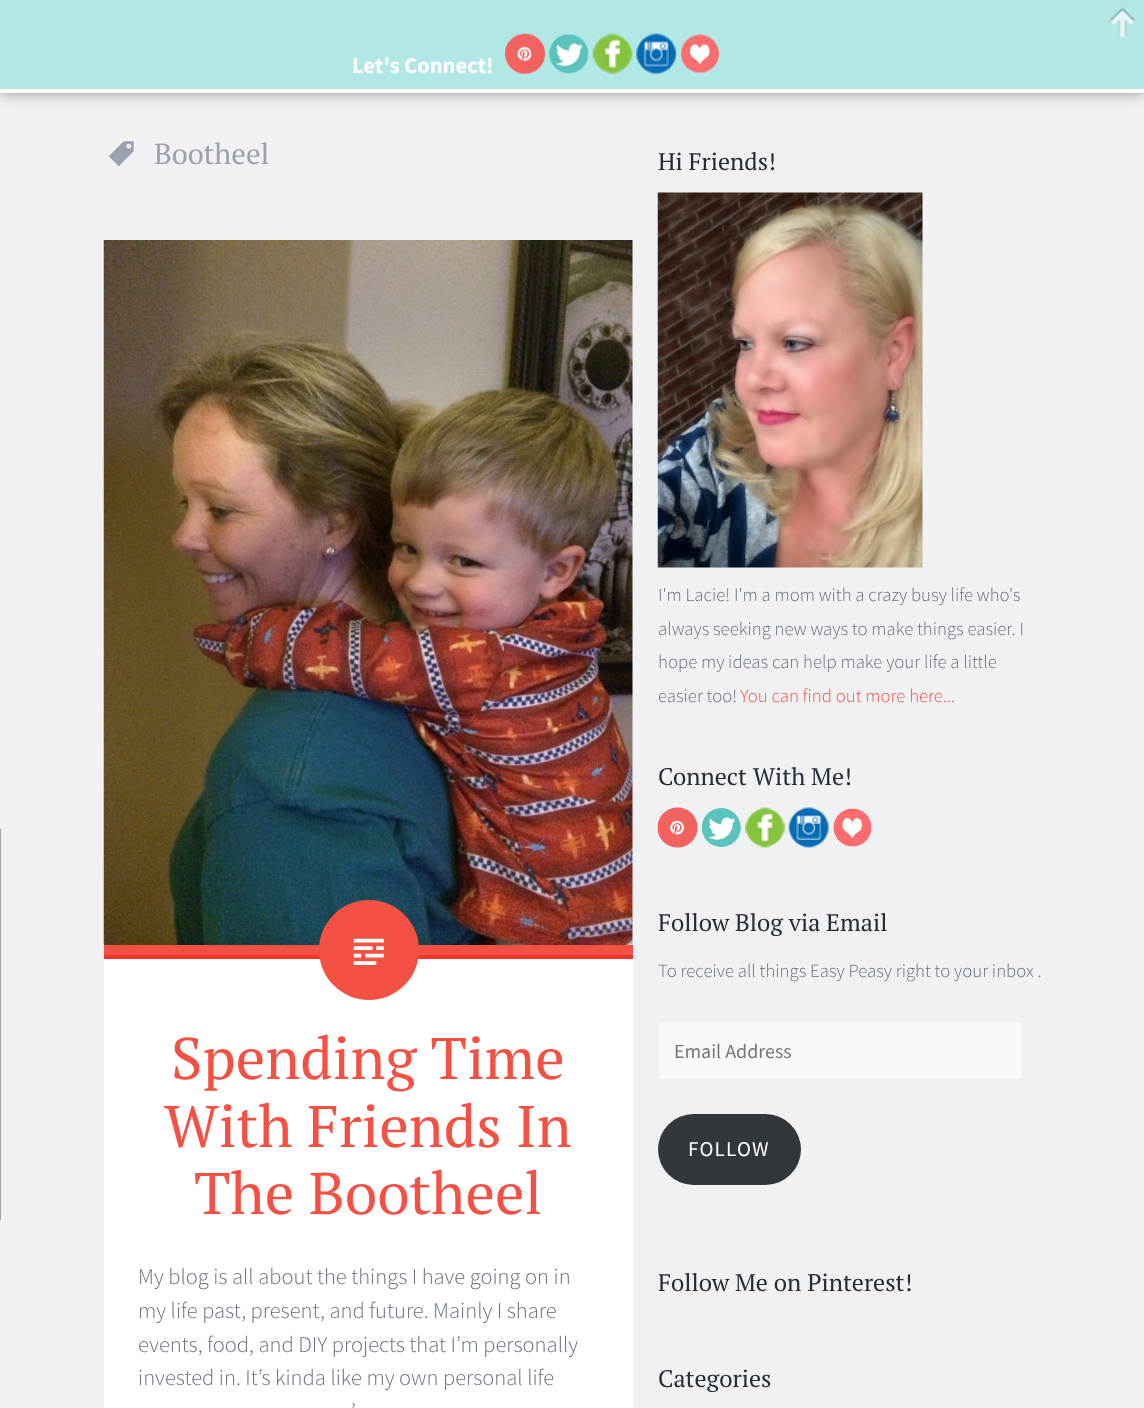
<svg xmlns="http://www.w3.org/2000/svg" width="1144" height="1408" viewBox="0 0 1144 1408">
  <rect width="100%" height="100%" fill="#f0f1f3"/>
  <path d="M0 0h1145v93H0z" fill="#00000066" filter="blur(7px)"/>
  <path d="M0 0h1144v89H0z" fill="#b1e8e6"/>
  <path d="M0 89h1144v4H0z" fill="#fff"/>
  <image x="1109" y="7" width="27" height="31" href="img/1.png"/>
  <image x="505" y="33" width="40" height="42" href="img/2.png"/>
  <image x="549" y="34" width="39" height="40" href="img/3.png"/>
  <image x="592" y="33" width="41" height="42" href="img/4.png"/>
  <image x="636" y="33" width="41" height="42" href="img/5.png"/>
  <image x="681" y="34" width="38" height="39" href="img/6.png"/>
  <path d="M-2 829h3v391H-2z" fill="#2d2d2d66" filter="blur(0.5px)"/>
  <image x="108" y="141" width="26" height="26" href="img/7.png"/>
  <image x="103" y="240" width="530" height="705" href="img/8.png"/>
  <path d="M104 959h529v449H104z" fill="#fff"/>
  <path d="M104 945h529v10H104z" fill="#f45145"/>
  <path d="M104 955h529v4H104z" fill="#f23628"/>
  <circle cx="369" cy="950" r="50" fill="#f45145"/>
  <image x="353" y="938" width="31" height="27" href="img/9.png"/>
  <image x="657" y="192" width="266" height="376" href="img/10.png"/>
  <image x="657" y="807" width="41" height="41" href="img/11.png"/>
  <image x="702" y="808" width="39" height="39" href="img/12.png"/>
  <image x="745" y="807" width="40" height="41" href="img/13.png"/>
  <image x="788" y="807" width="41" height="41" href="img/14.png"/>
  <image x="833" y="808" width="39" height="39" href="img/15.png"/>
  <rect x="658.5" y="1021.5" width="364" height="58" rx="3.5" fill="#f9f9fa" stroke="#f0f1f3"/>
  <rect x="658" y="1114" width="143" height="71" rx="35.5" fill="#32373c"/>
  <text x="352" y="73" font-family="Source Sans Pro" font-size="22.5" font-weight="bold" fill="#fff">Let's Connect!</text>
  <text x="154" y="164" font-family="PT Serif" font-size="29" fill="#9ba2af">Bootheel</text>
  <g font-family="PT Serif" font-size="58.75" fill="#f45145">
    <text x="171" y="1079">Spending Time</text>
    <text x="164" y="1147">With Friends In</text>
    <text x="194" y="1214">The Bootheel</text>
  </g>
  <g font-family="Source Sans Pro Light" font-size="22.5" font-weight="300" fill="#656e7f">
    <text x="138" y="1284">My blog is all about the things I have going on in</text>
    <text x="138" y="1318">my life past, present, and future. Mainly I share</text>
    <text x="138" y="1352">events, food, and DIY projects that I’m personally</text>
    <text x="138" y="1385">invested in. It’s kinda like my own personal life</text>
    <text x="351" y="1419">’</text>
  </g>
  <text x="658" y="170" font-family="PT Serif" font-size="24" fill="#242d36">Hi Friends!</text>
  <g font-family="Source Sans Pro Light" font-size="18.75" font-weight="300" fill="#656e7f">
    <text x="658" y="601">I'm Lacie! I'm a mom with a crazy busy life who's</text>
    <text x="658" y="635">always seeking new ways to make things easier. I</text>
    <text x="658" y="668">hope my ideas can help make your life a little</text>
    <text x="658" y="702">easier too!</text>
  </g>
  <text x="740" y="702" font-family="Source Sans Pro Light" font-size="18.75" font-weight="300" fill="#f45145">You can find out more here...</text>
  <g font-family="PT Serif" font-size="24" fill="#242d36">
    <text x="658" y="785">Connect With Me!</text>
    <text x="658" y="931">Follow Blog via Email</text>
  </g>
  <text x="658" y="977" font-family="Source Sans Pro Light" font-size="18.75" font-weight="300" fill="#656e7f">To receive all things Easy Peasy right to your inbox .</text>
  <text x="674" y="1058" font-family="Source Sans Pro" font-size="20" fill="#757575">Email Address</text>
  <text x="688" y="1156" font-family="Source Sans Pro" font-size="21" letter-spacing="1.25" fill="#fff">FOLLOW</text>
  <g font-family="PT Serif" font-size="24" fill="#242d36">
    <text x="658" y="1291">Follow Me on Pinterest!</text>
    <text x="658" y="1387">Categories</text>
  </g>
</svg>
